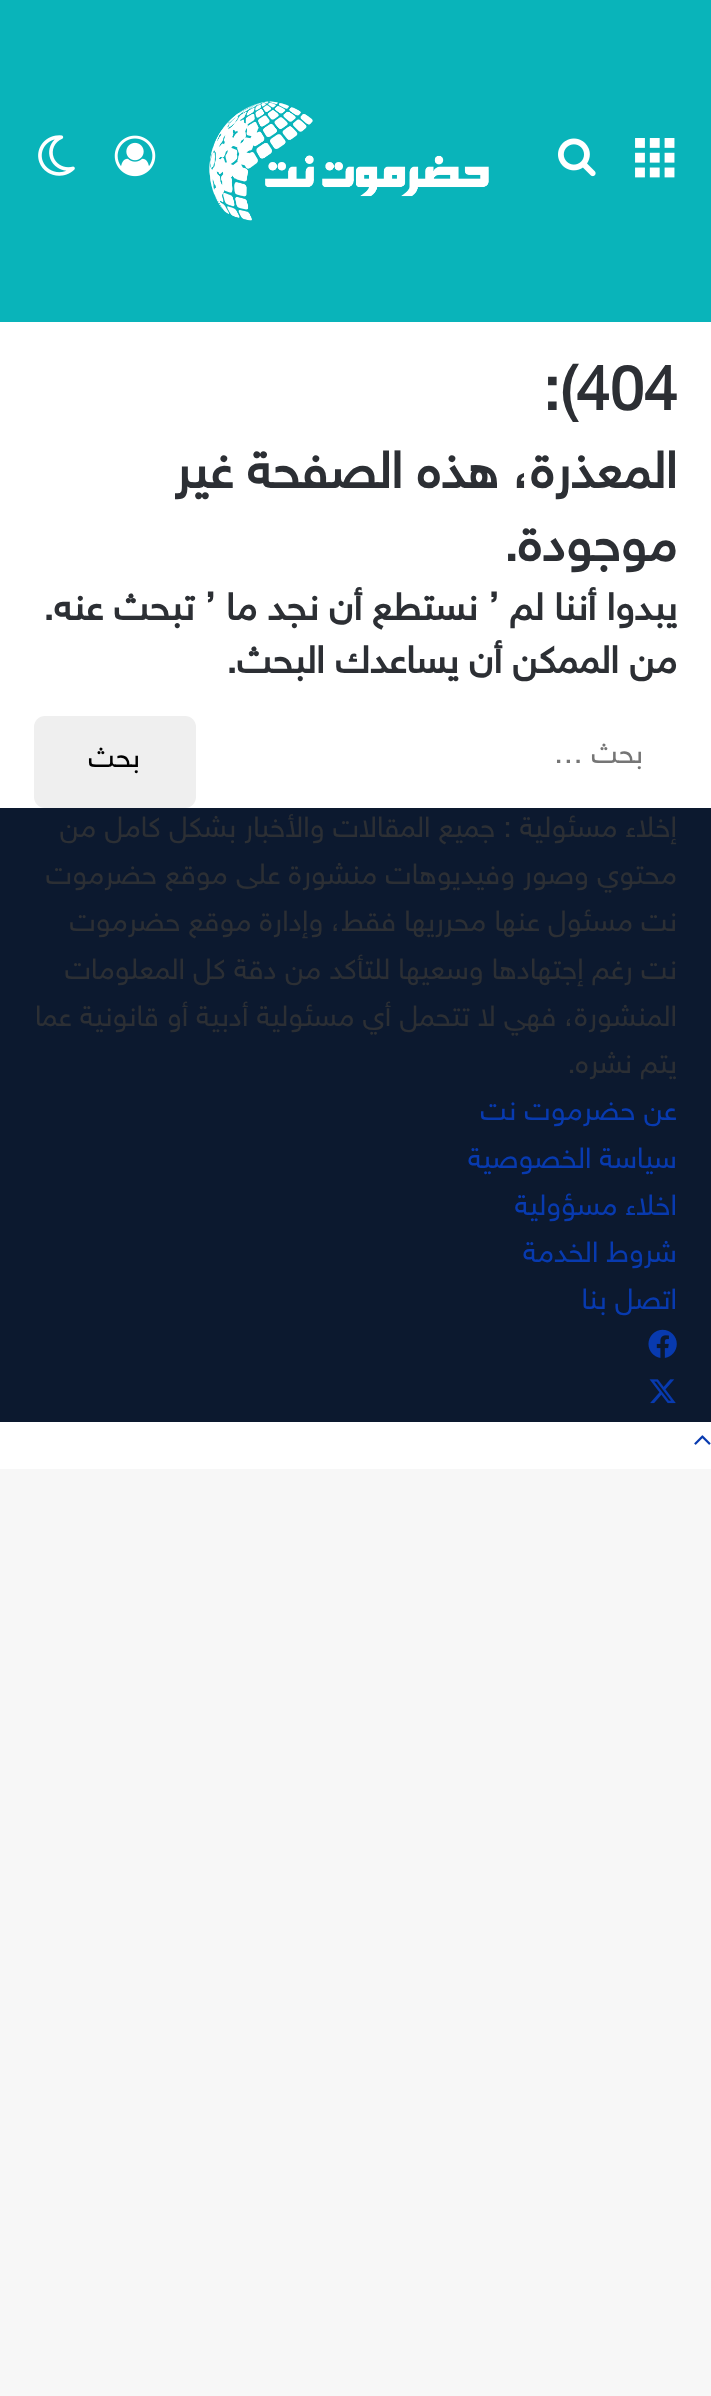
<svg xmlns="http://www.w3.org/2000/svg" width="711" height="2396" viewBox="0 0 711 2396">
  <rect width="100%" height="100%" fill="#f7f7f7"/>
  <path d="M0 322h711v1147H0z" fill="#fff"/>
  <path d="M0 0h711v322H0z" fill="#09b4ba"/>
  <image x="635" y="138" width="40" height="40" href="img/1.png"/>
  <image x="558" y="138" width="38" height="39" href="img/2.png"/>
  <image x="209" y="101" width="280" height="120" href="img/3.png"/>
  <image x="114" y="135" width="42" height="42" href="img/4.png"/>
  <image x="38" y="135" width="37" height="41" href="img/5.png"/>
  <rect x="34" y="716" width="162" height="92" rx="11" fill="#efefef"/>
  <path d="M0 808h711v614H0z" fill="#0c192f"/>
  <image x="648" y="1329" width="29" height="29" href="img/6.png"/>
  <image x="649" y="1379" width="27" height="25" href="img/7.png"/>
  <image x="694" y="1435" width="17" height="10" href="img/8.png"/>
  <text x="543" y="410" font-family="'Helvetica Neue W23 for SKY'" font-size="61" font-weight="bold" fill="#2c2f34">:(404</text>
  <g font-family="'Helvetica Neue W23 for SKY'" font-size="51.75" font-weight="bold" direction="rtl" fill="#2c2f34">
    <text x="677" y="488">المعذرة، هذه الصفحة غير</text>
    <text x="677" y="561">موجودة.</text>
  </g>
  <g font-family="'Helvetica Neue W23 for SKY'" font-size="38.25" font-weight="bold" direction="rtl" fill="#2c2f34">
    <text x="677" y="620">يبدوا أننا لم ’ نستطع أن نجد ما ’ تبحث عنه.</text>
    <text x="677" y="673">من الممكن أن يساعدك البحث.</text>
  </g>
  <text x="643" y="763" font-family="'Helvetica Neue W23 for SKY'" font-size="29.25" direction="rtl" fill="#757575">بحث …</text>
  <text x="140" y="767" font-family="'Helvetica Neue W23 for SKY'" font-size="29.25" direction="rtl" fill="#000">بحث</text>
  <g font-family="'Helvetica Neue W23 for SKY'" font-size="29.25" direction="rtl" fill="#2c2f34">
    <text x="677" y="837">إخلاء مسئولية : جميع المقالات والأخبار بشكل كامل من</text>
    <text x="677" y="884">محتوي وصور وفيديوهات منشورة على موقع حضرموت</text>
    <text x="677" y="931">نت مسئول عنها محرريها فقط، وإدارة موقع حضرموت</text>
    <text x="677" y="979">نت رغم إجتهادها وسعيها للتأكد من دقة كل المعلومات</text>
    <text x="677" y="1026">المنشورة، فهي لا تتحمل أي مسئولية أدبية أو قانونية عما</text>
    <text x="677" y="1073">يتم نشره.</text>
  </g>
  <g font-family="'Helvetica Neue W23 for SKY'" font-size="29.25" direction="rtl" fill="#083aaf">
    <text x="677" y="1120">عن حضرموت نت</text>
    <text x="677" y="1168">سياسة الخصوصية</text>
    <text x="677" y="1215">اخلاء مسؤولية</text>
    <text x="677" y="1262">شروط الخدمة</text>
    <text x="677" y="1309">اتصل بنا</text>
  </g>
</svg>
